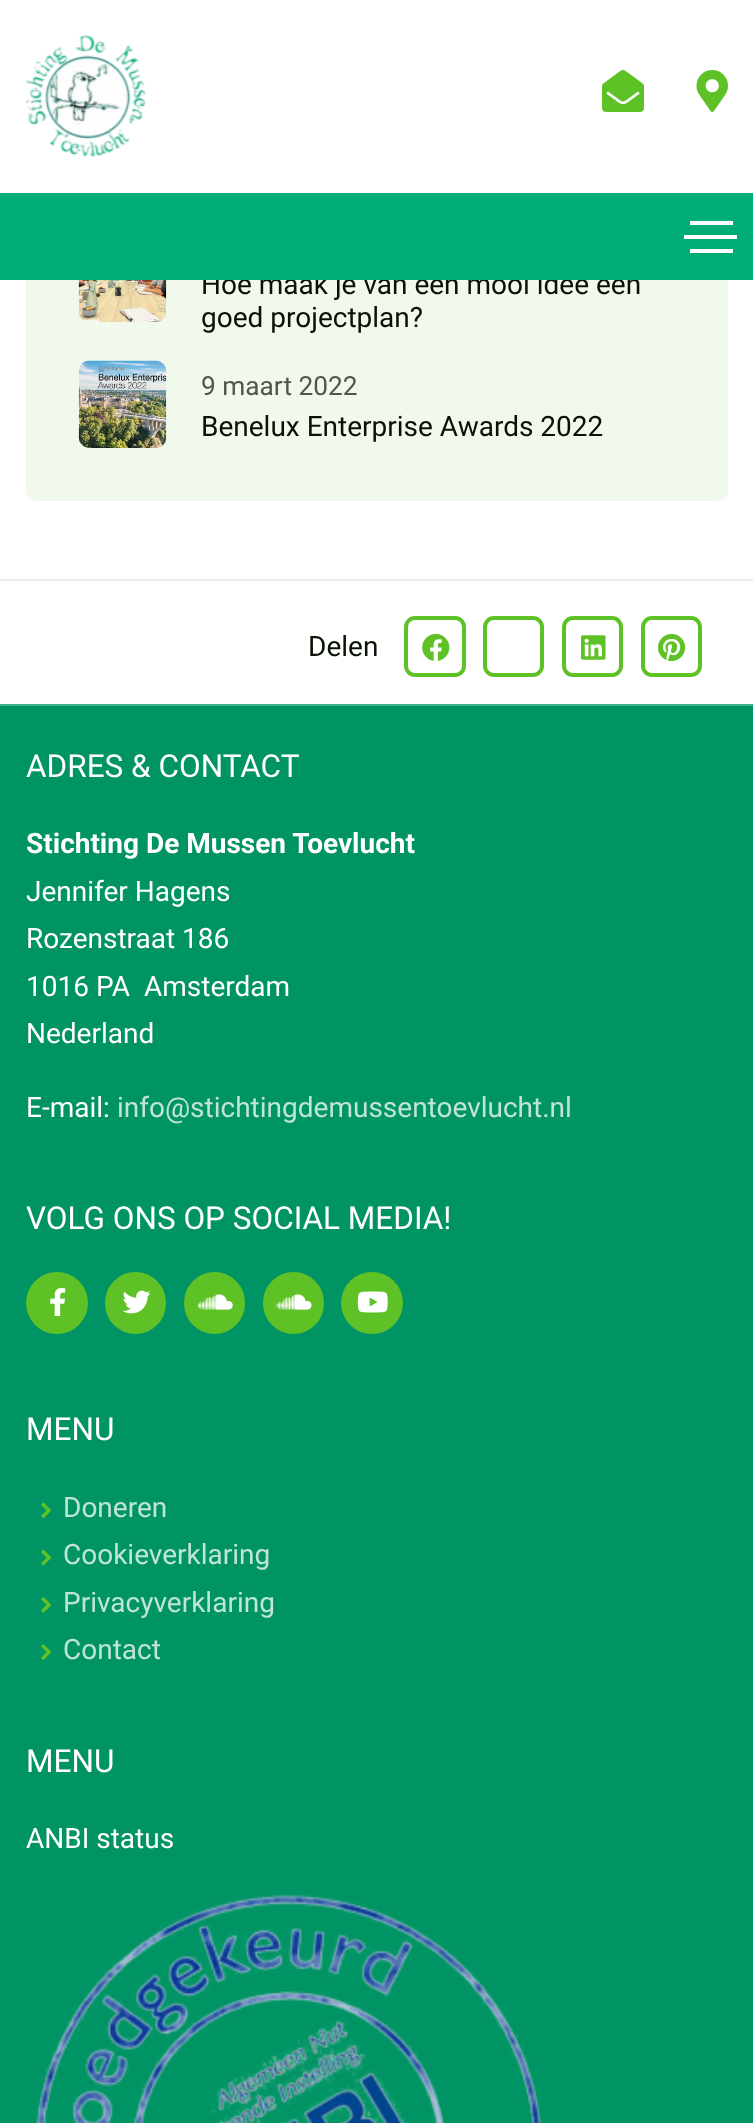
<svg xmlns="http://www.w3.org/2000/svg" width="753" height="2123" viewBox="0 0 753 2123">
  <rect width="100%" height="100%" fill="#fff"/>
  <rect x="26" y="-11" width="702" height="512" rx="11" fill="#f0f9eb"/>
  <path d="M26 0h702v193H26z" fill="#fff"/>
  <image x="26" y="35" width="120" height="122" href="img/1.png"/>
  <image x="602" y="70" width="42" height="42" href="img/2.png"/>
  <image x="696" y="70" width="32" height="42" href="img/3.png"/>
  <image x="78" y="280" width="89" height="42" href="img/4.png"/>
  <image x="78" y="360" width="89" height="88" href="img/5.png"/>
  <path d="M0 579h753v2H0z" fill="#e6eee9"/>
  <rect x="406" y="618" width="58" height="57" rx="9" fill="none" stroke="#5ec126" stroke-width="4"/>
  <image x="422" y="633" width="28" height="28" href="img/6.png"/>
  <rect x="485" y="618" width="57" height="57" rx="9" fill="none" stroke="#5ec126" stroke-width="4"/>
  <rect x="564" y="618" width="57" height="57" rx="9" fill="none" stroke="#5ec126" stroke-width="4"/>
  <image x="581" y="635" width="25" height="25" href="img/7.png"/>
  <rect x="643" y="618" width="57" height="57" rx="9" fill="none" stroke="#5ec126" stroke-width="4"/>
  <image x="658" y="633" width="28" height="29" href="img/8.png"/>
  <path d="M0 706h753v1417H0z" fill="#009465"/>
  <path d="M0 704h753v2H0z" fill="#40af8c"/>
  <circle cx="57" cy="1303" r="31" fill="#5ec126"/>
  <image x="50" y="1288" width="16" height="28" href="img/9.png"/>
  <rect x="105" y="1272" width="61" height="62" rx="30.5" fill="#5ec126"/>
  <image x="122" y="1290" width="29" height="24" href="img/10.png"/>
  <rect x="184" y="1272" width="61" height="62" rx="30.5" fill="#5ec126"/>
  <image x="197" y="1294" width="36" height="16" href="img/11.png"/>
  <rect x="263" y="1272" width="61" height="62" rx="30.5" fill="#5ec126"/>
  <image x="276" y="1294" width="36" height="16" href="img/12.png"/>
  <circle cx="372" cy="1303" r="31" fill="#5ec126"/>
  <image x="357" y="1291" width="31" height="22" href="img/13.png"/>
  <image x="41" y="1502" width="11" height="17" href="img/14.png"/>
  <image x="41" y="1549" width="11" height="17" href="img/15.png"/>
  <image x="41" y="1597" width="11" height="16" href="img/16.png"/>
  <image x="41" y="1644" width="11" height="16" href="img/17.png"/>
  <image x="35" y="1894" width="507" height="229" href="img/18.png"/>
  <text x="201" y="294" font-family="Roboto" font-size="28" fill="#091203">Hoe maak je van een mooi idee een</text>
  <path d="M0 193h753v87H0z" fill="#00ad77"/>
  <path d="M690 249h43v4H690z" fill="#fff"/>
  <path d="M684 235h53v4H684z" fill="#fff"/>
  <path d="M690 221h43v4H690z" fill="#fff"/>
  <text x="201" y="327" font-family="Roboto" font-size="28" fill="#091203">goed projectplan?</text>
  <text x="201" y="395" font-family="Roboto" font-size="26.25" fill="#4e5749">9 maart 2022</text>
  <g font-family="Roboto" font-size="28" fill="#091203">
    <text x="201" y="436">Benelux Enterprise Awards 2022</text>
    <text x="308" y="656">Delen</text>
  </g>
  <text x="26" y="777" font-family="Roboto" font-size="31.5" fill="#fff">ADRES &amp; CONTACT</text>
  <text x="26" y="853" font-family="Roboto" font-size="28" font-weight="bold" fill="#fff">Stichting De Mussen Toevlucht</text>
  <g font-family="Roboto" font-size="28" fill="#fff">
    <text x="26" y="901">Jennifer Hagens</text>
    <text x="26" y="948">Rozenstraat 186</text>
    <text x="26" y="996">1016 PA</text>
    <text x="144" y="996">Amsterdam</text>
    <text x="26" y="1043">Nederland</text>
    <text x="26" y="1117">E-mail:</text>
  </g>
  <text x="117" y="1117" font-family="Roboto" font-size="28" fill="#bfe4d9">info@stichtingdemussentoevlucht.nl</text>
  <g font-family="Roboto" font-size="31.5" fill="#fff">
    <text x="26" y="1229">VOLG ONS OP SOCIAL MEDIA!</text>
    <text x="26" y="1440">MENU</text>
  </g>
  <g font-family="Roboto" font-size="28" fill="#bfe4d9">
    <text x="63" y="1517">Doneren</text>
    <text x="63" y="1564">Cookieverklaring</text>
    <text x="63" y="1612">Privacyverklaring</text>
    <text x="63" y="1659">Contact</text>
  </g>
  <text x="26" y="1772" font-family="Roboto" font-size="31.5" fill="#fff">MENU</text>
  <text x="26" y="1848" font-family="Roboto" font-size="28" fill="#fff">ANBI status</text>
</svg>
